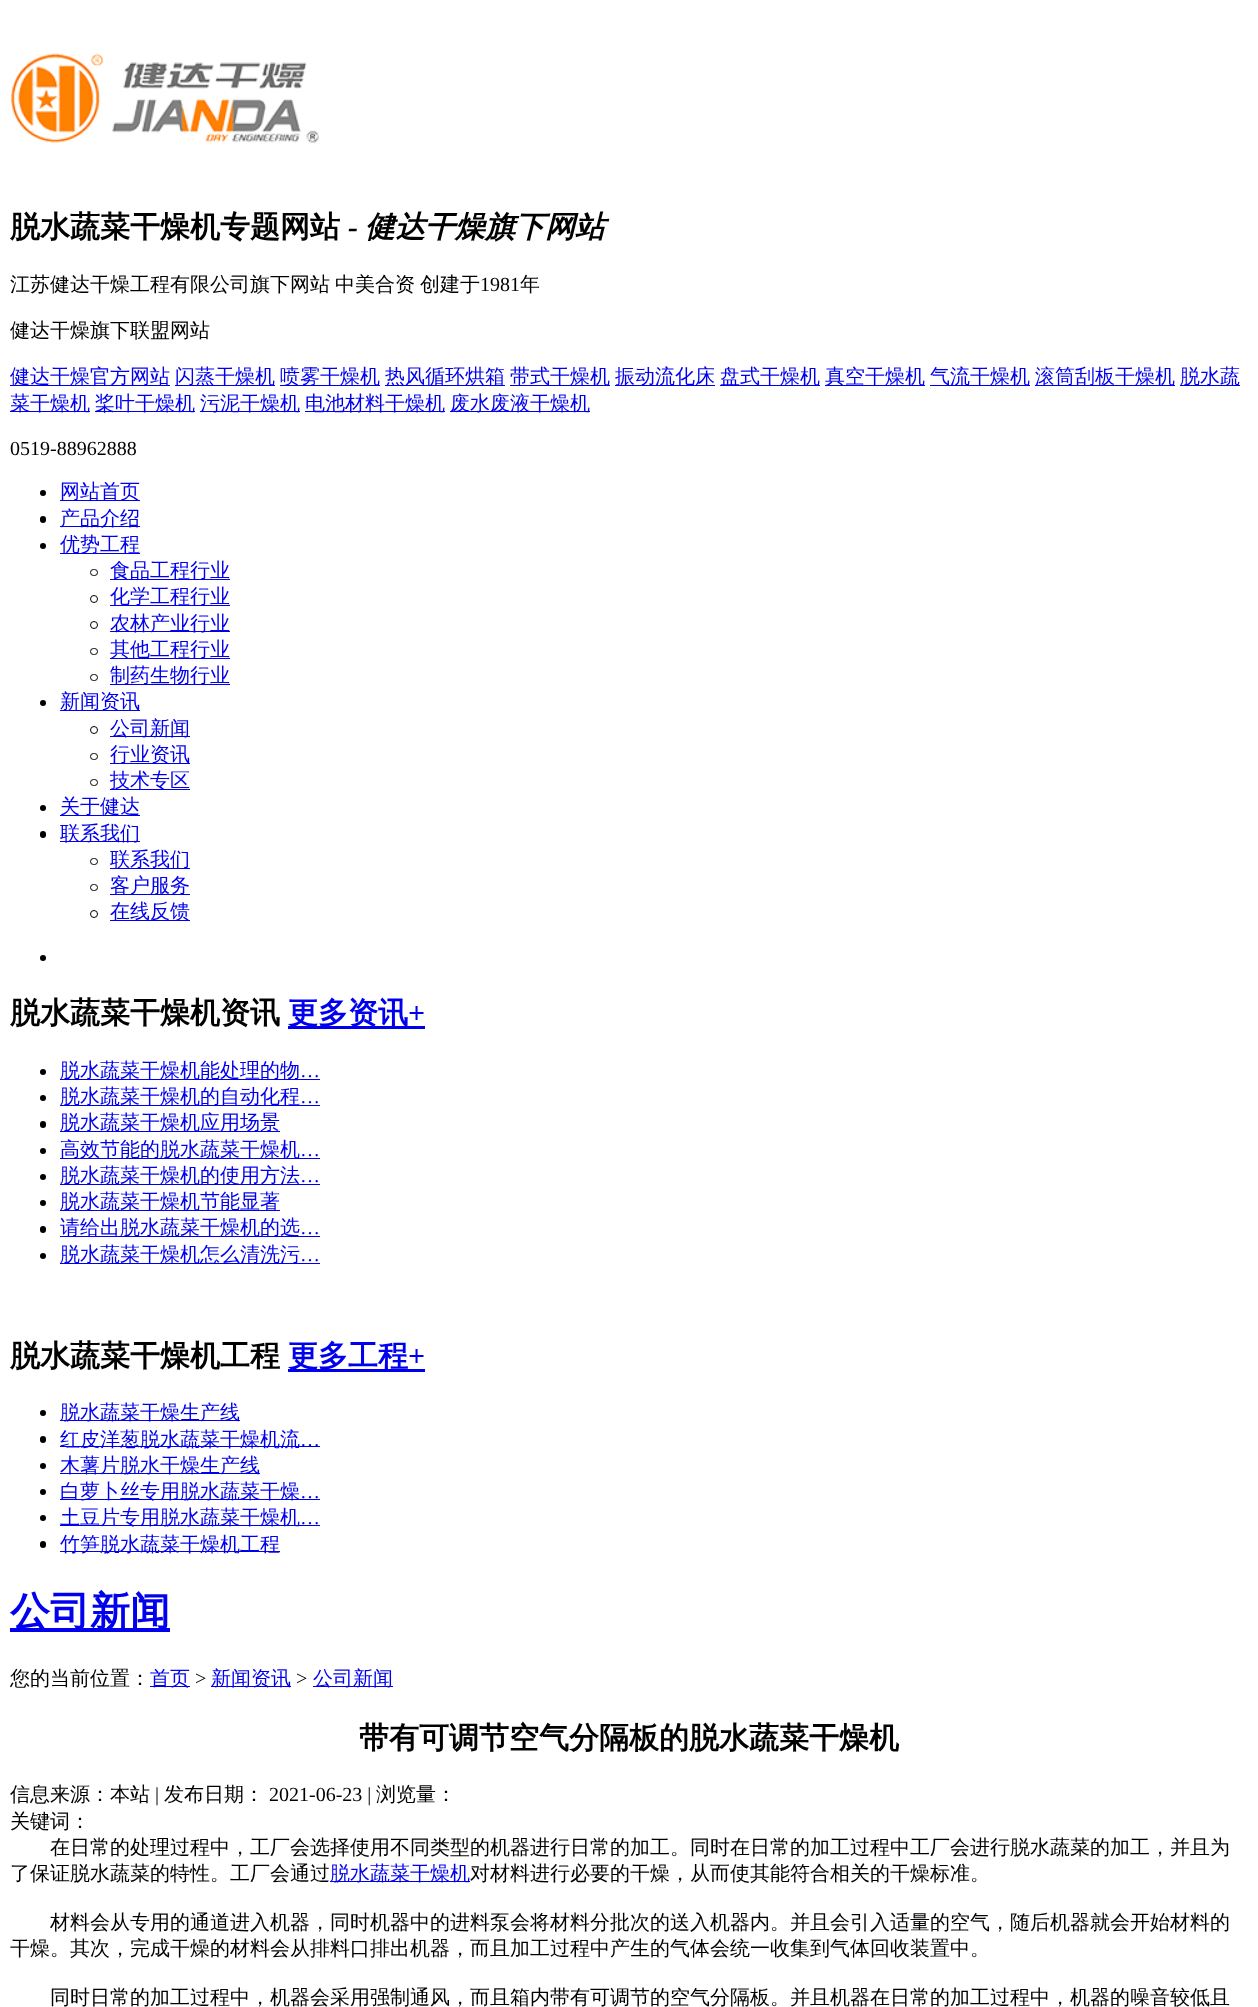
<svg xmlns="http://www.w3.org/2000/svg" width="1258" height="2007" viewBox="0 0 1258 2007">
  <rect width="100%" height="100%" fill="#fff"/>
  <image x="11" y="53" width="308" height="90" href="img/1.png"/>
  <path d="M10 385h160v1H10z" fill="#00e"/>
  <path d="M175 385h100v1H175z" fill="#00e"/>
  <path d="M280 385h100v1H280z" fill="#00e"/>
  <path d="M385 385h120v1H385z" fill="#00e"/>
  <path d="M510 385h100v1H510z" fill="#00e"/>
  <path d="M615 385h100v1H615z" fill="#00e"/>
  <path d="M720 385h100v1H720z" fill="#00e"/>
  <path d="M825 385h100v1H825z" fill="#00e"/>
  <path d="M930 385h100v1H930z" fill="#00e"/>
  <path d="M1035 385h140v1H1035z" fill="#00e"/>
  <path d="M1180 385h60v1H1180z" fill="#00e"/>
  <path d="M10 411h80v1H10z" fill="#00e"/>
  <path d="M95 411h100v1H95z" fill="#00e"/>
  <path d="M200 411h100v1H200z" fill="#00e"/>
  <path d="M305 411h140v1H305z" fill="#00e"/>
  <path d="M450 411h140v1H450z" fill="#00e"/>
  <circle cx="43" cy="493" r="3" fill="#000"/>
  <path d="M60 500h80v1H60z" fill="#00e"/>
  <rect x="40" y="516" width="6" height="7" rx="3" fill="#000"/>
  <path d="M60 526h80v1H60z" fill="#00e"/>
  <circle cx="43" cy="546" r="3" fill="#000"/>
  <path d="M60 553h80v1H60z" fill="#00e"/>
  <rect x="90.5" y="569.5" width="7" height="6" rx="3" fill="none" stroke="#000"/>
  <path d="M110 579h120v1H110z" fill="#00e"/>
  <circle cx="94" cy="599" r="3.5" fill="none" stroke="#000"/>
  <path d="M110 605h120v1H110z" fill="#00e"/>
  <circle cx="94" cy="625" r="3.5" fill="none" stroke="#000"/>
  <path d="M110 631h120v1H110z" fill="#00e"/>
  <rect x="90.5" y="648.5" width="7" height="6" rx="3" fill="none" stroke="#000"/>
  <path d="M110 658h120v1H110z" fill="#00e"/>
  <rect x="90.5" y="674.5" width="7" height="6" rx="3" fill="none" stroke="#000"/>
  <path d="M110 684h120v1H110z" fill="#00e"/>
  <circle cx="43" cy="703" r="3" fill="#000"/>
  <path d="M60 710h80v1H60z" fill="#00e"/>
  <circle cx="94" cy="730" r="3.5" fill="none" stroke="#000"/>
  <path d="M110 736h80v1H110z" fill="#00e"/>
  <rect x="90.5" y="753.5" width="7" height="6" rx="3" fill="none" stroke="#000"/>
  <path d="M110 763h80v1H110z" fill="#00e"/>
  <rect x="90.5" y="779.5" width="7" height="6" rx="3" fill="none" stroke="#000"/>
  <path d="M110 789h80v1H110z" fill="#00e"/>
  <circle cx="43" cy="808" r="3" fill="#000"/>
  <path d="M60 815h80v1H60z" fill="#00e"/>
  <rect x="40" y="831" width="6" height="7" rx="3" fill="#000"/>
  <path d="M60 841h80v1H60z" fill="#00e"/>
  <rect x="90.5" y="858.5" width="7" height="6" rx="3" fill="none" stroke="#000"/>
  <path d="M110 868h80v1H110z" fill="#00e"/>
  <rect x="90.5" y="884.5" width="7" height="6" rx="3" fill="none" stroke="#000"/>
  <path d="M110 894h80v1H110z" fill="#00e"/>
  <circle cx="94" cy="914" r="3.5" fill="none" stroke="#000"/>
  <path d="M110 920h80v1H110z" fill="#00e"/>
  <circle cx="43" cy="958" r="3" fill="#000"/>
  <path d="M288 1026h137v3H288z" fill="#00e"/>
  <circle cx="43" cy="1072" r="3" fill="#000"/>
  <path d="M60 1079h260v1H60z" fill="#00e"/>
  <circle cx="43" cy="1098" r="3" fill="#000"/>
  <path d="M60 1105h260v1H60z" fill="#00e"/>
  <rect x="40" y="1121" width="6" height="7" rx="3" fill="#000"/>
  <path d="M60 1131h220v1H60z" fill="#00e"/>
  <circle cx="43" cy="1151" r="3" fill="#000"/>
  <path d="M60 1158h260v1H60z" fill="#00e"/>
  <circle cx="43" cy="1177" r="3" fill="#000"/>
  <path d="M60 1184h260v1H60z" fill="#00e"/>
  <circle cx="43" cy="1203" r="3" fill="#000"/>
  <path d="M60 1210h220v1H60z" fill="#00e"/>
  <rect x="40" y="1226" width="6" height="7" rx="3" fill="#000"/>
  <path d="M60 1236h260v1H60z" fill="#00e"/>
  <circle cx="43" cy="1256" r="3" fill="#000"/>
  <path d="M60 1263h260v1H60z" fill="#00e"/>
  <path d="M288 1369h137v3H288z" fill="#00e"/>
  <circle cx="43" cy="1413" r="3" fill="#000"/>
  <path d="M60 1420h180v1H60z" fill="#00e"/>
  <rect x="40" y="1436" width="6" height="7" rx="3" fill="#000"/>
  <path d="M60 1446h260v1H60z" fill="#00e"/>
  <circle cx="43" cy="1466" r="3" fill="#000"/>
  <path d="M60 1473h200v1H60z" fill="#00e"/>
  <circle cx="43" cy="1492" r="3" fill="#000"/>
  <path d="M60 1499h260v1H60z" fill="#00e"/>
  <circle cx="43" cy="1518" r="3" fill="#000"/>
  <path d="M60 1525h260v1H60z" fill="#00e"/>
  <rect x="40" y="1541" width="6" height="7" rx="3" fill="#000"/>
  <path d="M60 1551h220v1H60z" fill="#00e"/>
  <path d="M10 1628h160v4H10z" fill="#00e"/>
  <path d="M150 1686h40v1H150z" fill="#00e"/>
  <path d="M211 1686h80v1H211z" fill="#00e"/>
  <path d="M313 1686h80v1H313z" fill="#00e"/>
  <path d="M330 1881h140v1H330z" fill="#00e"/>
  <text x="10" y="237" font-family="WenQuanYi Zen Hei" font-size="30" font-weight="bold" fill="#000">脱水蔬菜干燥机专题网站</text>
  <text x="348" y="237" font-family="Liberation Serif" font-size="30" font-weight="bold" font-style="italic" fill="#000">-</text>
  <text x="365" y="237" font-family="WenQuanYi Zen Hei" font-size="30" font-weight="bold" font-style="italic" fill="#000">健达干燥旗下网站</text>
  <g font-family="WenQuanYi Zen Hei" font-size="20" font-weight="500" fill="#000">
    <text x="10" y="291">江苏健达干燥工程有限公司旗下网站</text>
    <text x="335" y="291" word-spacing="-1">中美合资 创建于</text>
  </g>
  <text x="480" y="291" font-family="Liberation Serif" font-size="20" fill="#000">1981</text>
  <g font-family="WenQuanYi Zen Hei" font-size="20" font-weight="500" fill="#000">
    <text x="520" y="291">年</text>
    <text x="10" y="337">健达干燥旗下联盟网站</text>
  </g>
  <g font-family="WenQuanYi Zen Hei" font-size="20" font-weight="500" fill="#00e">
    <text x="10" y="383">健达干燥官方网站</text>
    <text x="175" y="383">闪蒸干燥机</text>
    <text x="280" y="383">喷雾干燥机</text>
    <text x="385" y="383">热风循环烘箱</text>
    <text x="510" y="383">带式干燥机</text>
    <text x="615" y="383">振动流化床</text>
    <text x="720" y="383">盘式干燥机</text>
    <text x="825" y="383">真空干燥机</text>
    <text x="930" y="383">气流干燥机</text>
    <text x="1035" y="383">滚筒刮板干燥机</text>
    <text x="1180" y="383">脱水蔬</text>
    <text x="10" y="410">菜干燥机</text>
    <text x="95" y="410">桨叶干燥机</text>
    <text x="200" y="410">污泥干燥机</text>
    <text x="305" y="410">电池材料干燥机</text>
    <text x="450" y="410">废水废液干燥机</text>
  </g>
  <text x="10" y="455" font-family="Liberation Serif" font-size="20" fill="#000">0519-88962888</text>
  <g font-family="WenQuanYi Zen Hei" font-size="20" font-weight="500" fill="#00e">
    <text x="60" y="498">网站首页</text>
    <text x="60" y="525">产品介绍</text>
    <text x="60" y="551">优势工程</text>
    <text x="110" y="577">食品工程行业</text>
    <text x="110" y="603">化学工程行业</text>
    <text x="110" y="630">农林产业行业</text>
    <text x="110" y="656">其他工程行业</text>
    <text x="110" y="682">制药生物行业</text>
    <text x="60" y="708">新闻资讯</text>
    <text x="110" y="735">公司新闻</text>
    <text x="110" y="761">行业资讯</text>
    <text x="110" y="787">技术专区</text>
    <text x="60" y="813">关于健达</text>
    <text x="60" y="840">联系我们</text>
    <text x="110" y="866">联系我们</text>
    <text x="110" y="892">客户服务</text>
    <text x="110" y="918">在线反馈</text>
  </g>
  <text x="10" y="1023" font-family="WenQuanYi Zen Hei" font-size="30" font-weight="bold" fill="#000">脱水蔬菜干燥机资讯</text>
  <text x="288" y="1023" font-family="WenQuanYi Zen Hei" font-size="30" font-weight="bold" fill="#00e">更多资讯</text>
  <text x="408" y="1023" font-family="Liberation Serif" font-size="30" font-weight="bold" fill="#00e">+</text>
  <text x="60" y="1077" font-family="WenQuanYi Zen Hei" font-size="20" font-weight="500" fill="#00e">脱水蔬菜干燥机能处理的物</text>
  <text x="300" y="1077" font-family="Liberation Serif" font-size="20" fill="#00e">…</text>
  <text x="60" y="1103" font-family="WenQuanYi Zen Hei" font-size="20" font-weight="500" fill="#00e">脱水蔬菜干燥机的自动化程</text>
  <text x="300" y="1103" font-family="Liberation Serif" font-size="20" fill="#00e">…</text>
  <g font-family="WenQuanYi Zen Hei" font-size="20" font-weight="500" fill="#00e">
    <text x="60" y="1129">脱水蔬菜干燥机应用场景</text>
    <text x="60" y="1156">高效节能的脱水蔬菜干燥机</text>
  </g>
  <text x="300" y="1156" font-family="Liberation Serif" font-size="20" fill="#00e">…</text>
  <text x="60" y="1182" font-family="WenQuanYi Zen Hei" font-size="20" font-weight="500" fill="#00e">脱水蔬菜干燥机的使用方法</text>
  <text x="300" y="1182" font-family="Liberation Serif" font-size="20" fill="#00e">…</text>
  <g font-family="WenQuanYi Zen Hei" font-size="20" font-weight="500" fill="#00e">
    <text x="60" y="1208">脱水蔬菜干燥机节能显著</text>
    <text x="60" y="1234">请给出脱水蔬菜干燥机的选</text>
  </g>
  <text x="300" y="1234" font-family="Liberation Serif" font-size="20" fill="#00e">…</text>
  <text x="60" y="1261" font-family="WenQuanYi Zen Hei" font-size="20" font-weight="500" fill="#00e">脱水蔬菜干燥机怎么清洗污</text>
  <text x="300" y="1261" font-family="Liberation Serif" font-size="20" fill="#00e">…</text>
  <text x="10" y="1366" font-family="WenQuanYi Zen Hei" font-size="30" font-weight="bold" fill="#000">脱水蔬菜干燥机工程</text>
  <text x="288" y="1366" font-family="WenQuanYi Zen Hei" font-size="30" font-weight="bold" fill="#00e">更多工程</text>
  <text x="408" y="1366" font-family="Liberation Serif" font-size="30" font-weight="bold" fill="#00e">+</text>
  <g font-family="WenQuanYi Zen Hei" font-size="20" font-weight="500" fill="#00e">
    <text x="60" y="1419">脱水蔬菜干燥生产线</text>
    <text x="60" y="1446">红皮洋葱脱水蔬菜干燥机流</text>
  </g>
  <text x="300" y="1446" font-family="Liberation Serif" font-size="20" fill="#00e">…</text>
  <g font-family="WenQuanYi Zen Hei" font-size="20" font-weight="500" fill="#00e">
    <text x="60" y="1472">木薯片脱水干燥生产线</text>
    <text x="60" y="1498">白萝卜丝专用脱水蔬菜干燥</text>
  </g>
  <text x="300" y="1498" font-family="Liberation Serif" font-size="20" fill="#00e">…</text>
  <text x="60" y="1524" font-family="WenQuanYi Zen Hei" font-size="20" font-weight="500" fill="#00e">土豆片专用脱水蔬菜干燥机</text>
  <text x="300" y="1524" font-family="Liberation Serif" font-size="20" fill="#00e">…</text>
  <text x="60" y="1551" font-family="WenQuanYi Zen Hei" font-size="20" font-weight="500" fill="#00e">竹笋脱水蔬菜干燥机工程</text>
  <text x="10" y="1625" font-family="WenQuanYi Zen Hei" font-size="40" font-weight="bold" fill="#00e">公司新闻</text>
  <text x="10" y="1685" font-family="WenQuanYi Zen Hei" font-size="20" font-weight="500" fill="#000">您的当前位置：</text>
  <text x="150" y="1685" font-family="WenQuanYi Zen Hei" font-size="20" font-weight="500" fill="#00e">首页</text>
  <text x="195" y="1685" font-family="Liberation Serif" font-size="20" fill="#000">&gt;</text>
  <text x="211" y="1685" font-family="WenQuanYi Zen Hei" font-size="20" font-weight="500" fill="#00e">新闻资讯</text>
  <text x="296" y="1685" font-family="Liberation Serif" font-size="20" fill="#000">&gt;</text>
  <text x="313" y="1685" font-family="WenQuanYi Zen Hei" font-size="20" font-weight="500" fill="#00e">公司新闻</text>
  <text x="359" y="1748" font-family="WenQuanYi Zen Hei" font-size="30" font-weight="bold" fill="#000">带有可调节空气分隔板的脱水蔬菜干燥机</text>
  <text x="10" y="1801" font-family="WenQuanYi Zen Hei" font-size="20" font-weight="500" fill="#000">信息来源：本站</text>
  <text x="155" y="1801" font-family="Liberation Serif" font-size="20" fill="#000">|</text>
  <text x="164" y="1801" font-family="WenQuanYi Zen Hei" font-size="20" font-weight="500" fill="#000">发布日期：</text>
  <text x="269" y="1801" font-family="Liberation Serif" font-size="20" fill="#000">2021-06-23 |</text>
  <g font-family="WenQuanYi Zen Hei" font-size="20" font-weight="500" fill="#000">
    <text x="376" y="1801">浏览量：</text>
    <text x="10" y="1828">关键词：</text>
    <text x="50" y="1854">在日常的处理过程中，工厂会选择使用不同类型的机器进行日常的加工。同时在日常的加工过程中工厂会进行脱水蔬菜的加工，并且为</text>
    <text x="10" y="1880">了保证脱水蔬菜的特性。工厂会通过</text>
  </g>
  <text x="330" y="1880" font-family="WenQuanYi Zen Hei" font-size="20" font-weight="500" fill="#00e">脱水蔬菜干燥机</text>
  <g font-family="WenQuanYi Zen Hei" font-size="20" font-weight="500" fill="#000">
    <text x="470" y="1880">对材料进行必要的干燥，从而使其能符合相关的干燥标准。</text>
    <text x="50" y="1929">材料会从专用的通道进入机器，同时机器中的进料泵会将材料分批次的送入机器内。并且会引入适量的空气，随后机器就会开始材料的</text>
    <text x="10" y="1955">干燥。其次，完成干燥的材料会从排料口排出机器，而且加工过程中产生的气体会统一收集到气体回收装置中。</text>
    <text x="50" y="2004">同时日常的加工过程中，机器会采用强制通风，而且箱内带有可调节的空气分隔板。并且机器在日常的加工过程中，机器的噪音较低且</text>
  </g>
</svg>
